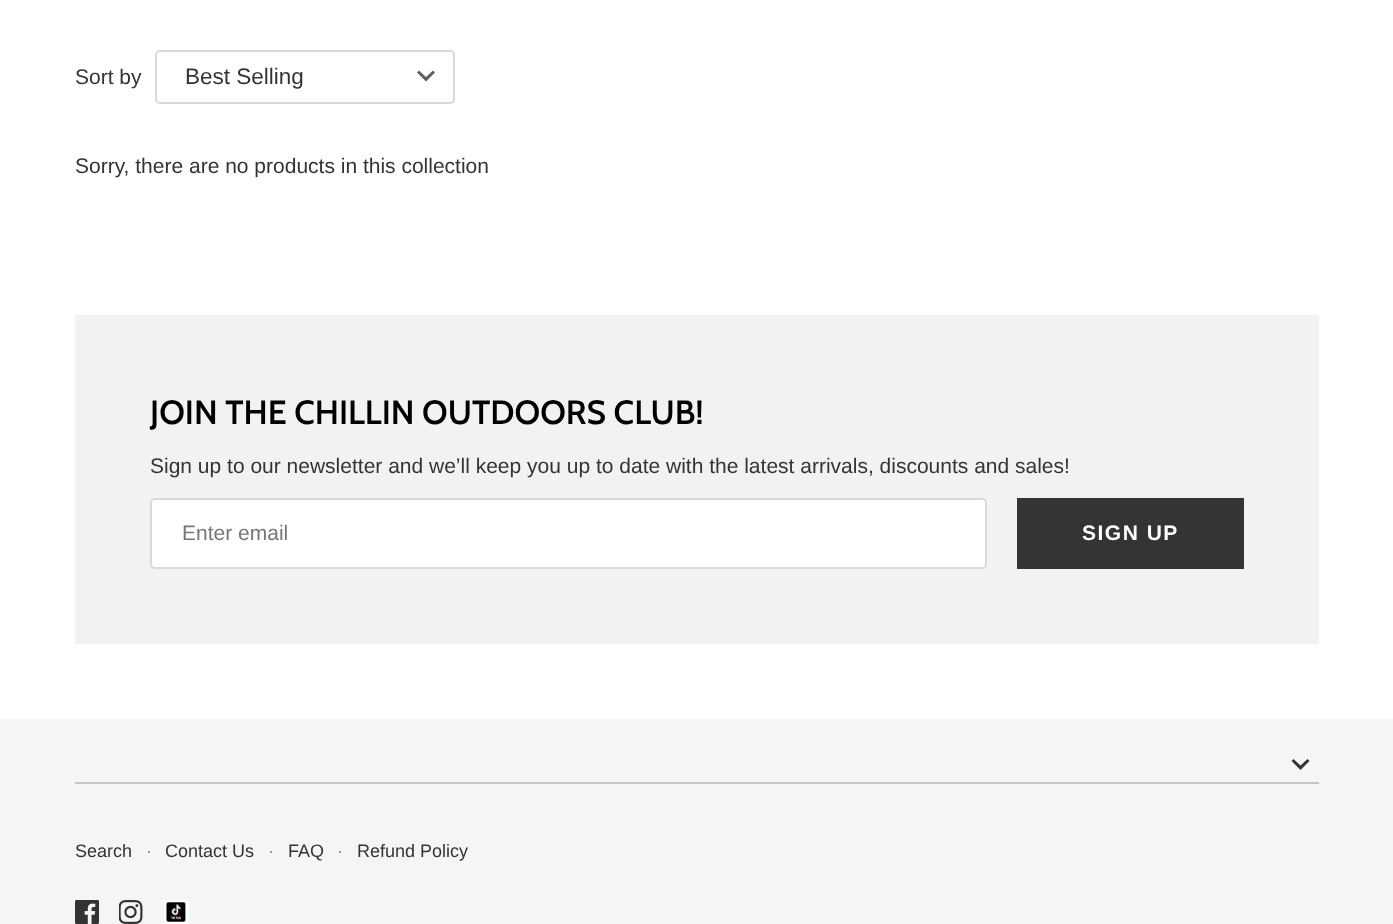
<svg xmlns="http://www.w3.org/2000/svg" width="1393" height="924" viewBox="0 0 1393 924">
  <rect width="100%" height="100%" fill="#fff"/>
  <path d="M419 70.5L426 77L433 70.5L435 72.5L426 81.5L417 72.5Z" fill="#616161"/>
  <rect x="156" y="51" width="298" height="52" rx="4" fill="none" stroke="#d9d9d9" stroke-width="2"/>
  <path d="M75 315h1244v329H75z" fill="#f2f2f2"/>
  <rect x="150" y="498" width="837" height="71" rx="5" fill="#fff"/>
  <rect x="151" y="499" width="835" height="69" rx="4" fill="none" stroke="#00000026" stroke-width="2"/>
  <path d="M1017 498h227v71H1017z" fill="#343434"/>
  <path d="M0 719h1393v205H0z" fill="#f5f5f5"/>
  <path d="M75 782h1244v2H75z" fill="#c5c5c5"/>
  <path d="M1293.5 759L1300.5 765.5L1307.5 759L1309.5 761L1300.5 770L1291.5 761Z" fill="#333"/>
  <image x="75" y="900" width="24" height="24" href="img/1.png"/>
  <image x="119" y="900" width="24" height="24" href="img/2.png"/>
  <image x="163" y="900" width="26" height="24" href="img/3.png"/>
  <text x="75" y="84" font-family="Liberation Sans" font-size="21" fill="#343434">Sort by</text>
  <text x="185" y="84" font-family="Liberation Sans" font-size="22.5" fill="#343434">Best Selling</text>
  <text x="75" y="173" font-family="Liberation Sans" font-size="21" fill="#343434">Sorry, there are no products in this collection</text>
  <text x="150" y="424" font-family="Cabin" font-size="33.6" font-weight="600" fill="#000">JOIN THE CHILLIN OUTDOORS CLUB!</text>
  <text x="150" y="473" font-family="Liberation Sans" font-size="21" fill="#343434">Sign up to our newsletter and we’ll keep you up to date with the latest arrivals, discounts and sales!</text>
  <text x="182" y="540" font-family="Liberation Sans" font-size="21" fill="#777">Enter email</text>
  <text x="1082" y="540" font-family="Liberation Sans" font-size="21" font-weight="bold" letter-spacing="1.5" fill="#fff">SIGN UP</text>
  <text x="75" y="857" font-family="Liberation Sans" font-size="18" fill="#343434">Search</text>
  <text x="146" y="857" font-family="Liberation Sans" font-size="18" fill="#777">·</text>
  <text x="165" y="857" font-family="Liberation Sans" font-size="18" fill="#343434">Contact Us</text>
  <text x="268" y="857" font-family="Liberation Sans" font-size="18" fill="#777">·</text>
  <text x="288" y="857" font-family="Liberation Sans" font-size="18" fill="#343434">FAQ</text>
  <text x="337" y="857" font-family="Liberation Sans" font-size="18" fill="#777">·</text>
  <text x="357" y="857" font-family="Liberation Sans" font-size="18" fill="#343434">Refund Policy</text>
</svg>
